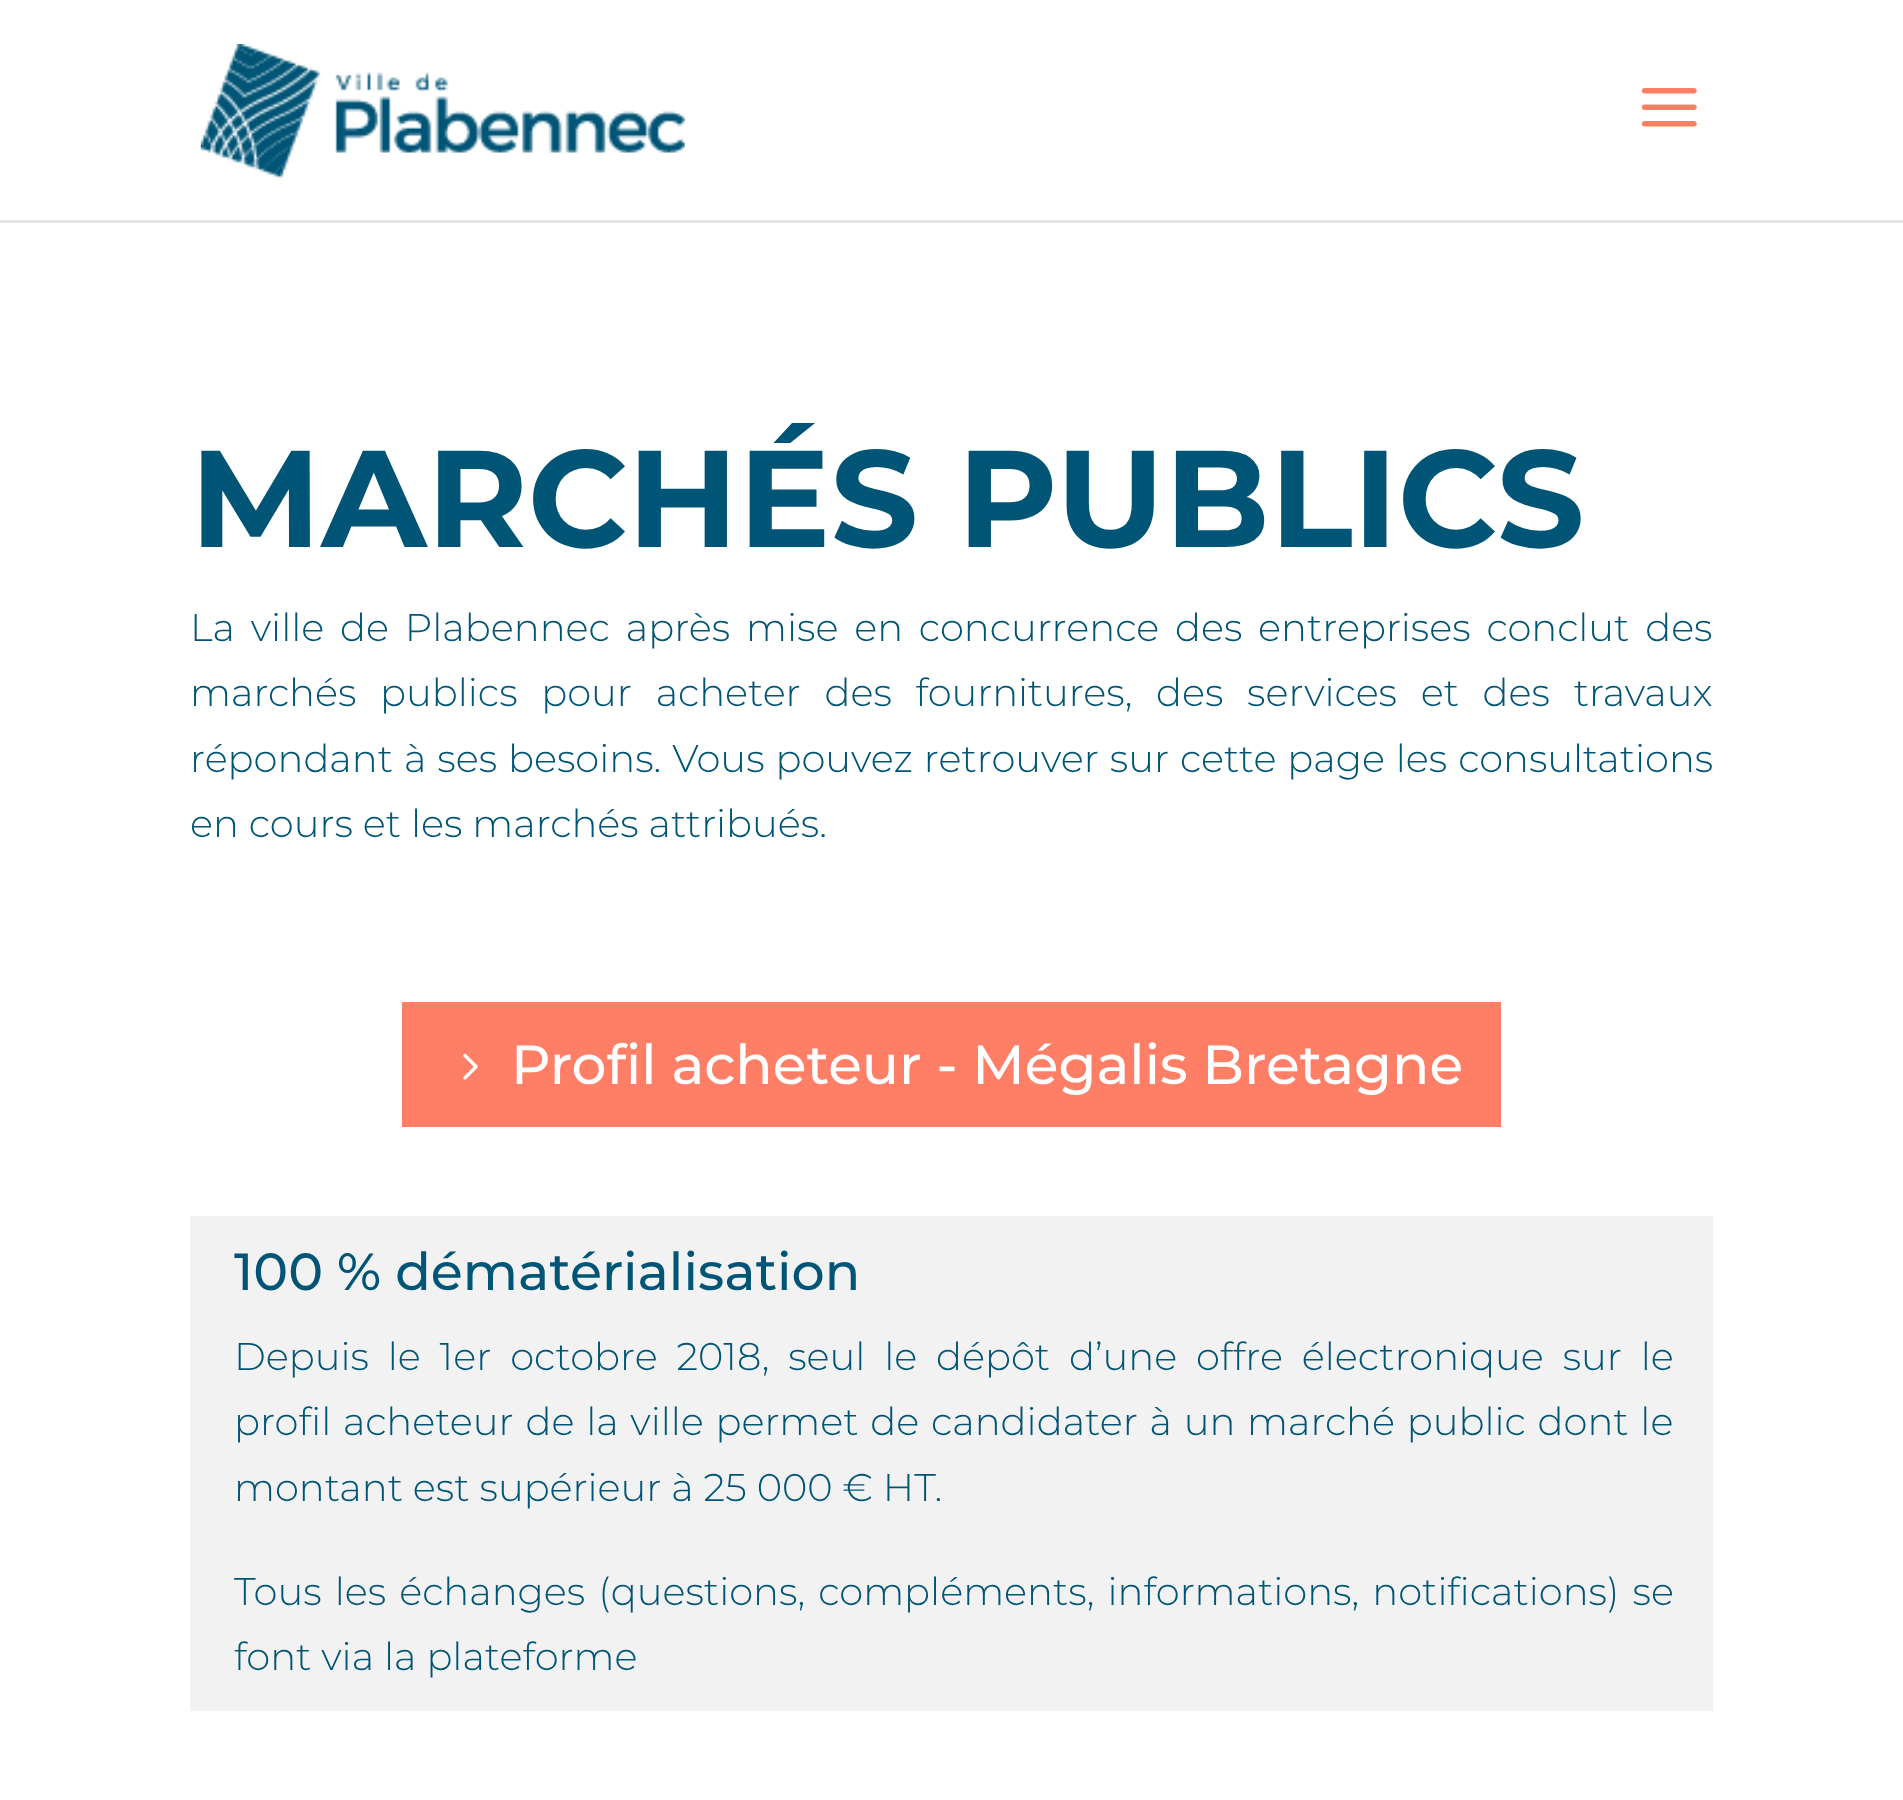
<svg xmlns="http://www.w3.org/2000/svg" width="1903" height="1800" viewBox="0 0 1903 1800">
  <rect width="100%" height="100%" fill="#fff"/>
  <image x="200" y="44" width="485" height="135" href="img/1.png"/>
  <path d="M0 220h1903v3H0z" fill="#e6e6e6"/>
  <image x="1641" y="88" width="56" height="39" href="img/2.png"/>
  <path d="M402 1002h1099v125H402z" fill="#ff7e66"/>
  <image x="463" y="1053" width="15" height="27" href="img/3.png"/>
  <path d="M190 1216h1523v495H190z" fill="#f2f2f2"/>
  <text x="190" y="547" font-family="Montserrat" font-size="137.5" font-weight="bold" fill="#005576">MARCHÉS PUBLICS</text>
  <g font-family="Montserrat" font-size="38.5" font-weight="300" fill="#005576">
    <text x="190" y="641" word-spacing="5.9">La ville de Plabennec après mise en concurrence des entreprises conclut des</text>
    <text x="190" y="706" word-spacing="13.75">marchés publics pour acheter des fournitures, des services et des travaux</text>
    <text x="190" y="772" word-spacing="1">répondant à ses besoins. Vous pouvez retrouver sur cette page les consultations</text>
    <text x="190" y="837">en cours et les marchés attribués.</text>
  </g>
  <text x="511" y="1084" font-family="Montserrat" font-size="55" font-weight="500" fill="#fff">Profil acheteur - Mégalis Bretagne</text>
  <text x="234" y="1290" font-family="Montserrat" font-size="52.25" font-weight="500" fill="#005576">100 % dématérialisation</text>
  <g font-family="Montserrat" font-size="38.5" font-weight="300" fill="#005576">
    <text x="234" y="1370" word-spacing="8.9">Depuis le 1er octobre 2018, seul le dépôt d’une offre électronique sur le</text>
    <text x="234" y="1435" word-spacing="1.8">profil acheteur de la ville permet de candidater à un marché public dont le</text>
    <text x="234" y="1501">montant est supérieur à 25 000 € HT.</text>
    <text x="234" y="1605" word-spacing="3.25">Tous les échanges (questions, compléments, informations, notifications) se</text>
    <text x="234" y="1670">font via la plateforme</text>
  </g>
</svg>
